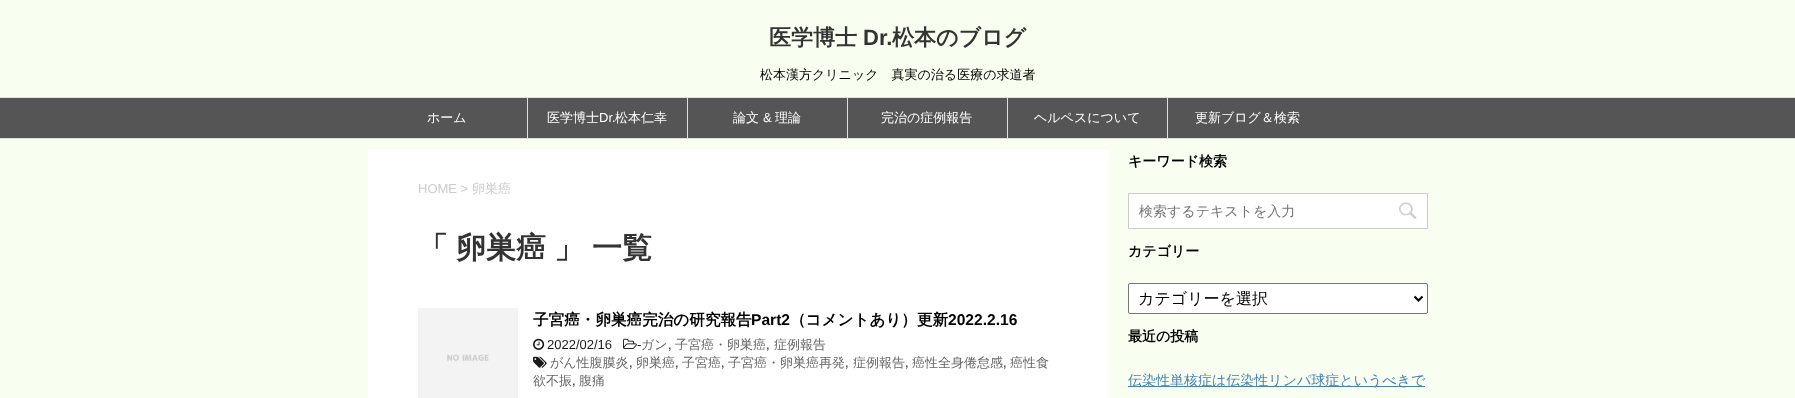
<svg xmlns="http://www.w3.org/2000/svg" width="1795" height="398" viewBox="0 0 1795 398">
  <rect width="100%" height="100%" fill="#f9fff0"/>
  <path d="M0 98h1795v40H0z" fill="#555"/>
  <path d="M0 97h1795v1H0z" fill="#e0dede"/>
  <path d="M0 138h1795v1H0z" fill="#e0dede"/>
  <path d="M527 98h1v40H527z" fill="#e0dede"/>
  <path d="M687 98h1v40H687z" fill="#e0dede"/>
  <path d="M847 98h1v40H847z" fill="#e0dede"/>
  <path d="M1007 98h1v40H1007z" fill="#e0dede"/>
  <path d="M1167 98h1v40H1167z" fill="#e0dede"/>
  <rect x="368" y="149" width="740" height="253" rx="4" fill="#fff"/>
  <image x="418" y="308" width="100" height="90" href="img/1.png"/>
  <image x="623" y="338" width="14" height="11" href="img/2.png"/>
  <image x="533" y="356" width="14" height="12" href="img/3.png"/>
  <image x="533" y="338" width="12" height="12" href="img/4.png"/>
  <path d="M1128.5 193.5h299v35H1128.5z" fill="none" stroke="#ccc"/>
  <path d="M1129 194h298v34H1129z" fill="#fff"/>
  <image x="1399" y="202" width="18" height="17" href="img/5.png"/>
  <rect x="1128.5" y="283.5" width="299" height="30" rx="1.5" fill="#fff" stroke="#767676"/>
  <path d="M1414.5 296.5L1418.5 300.5L1422.5 296.5" fill="none" stroke="#000" stroke-width="2"/>
  <path d="M1128 386h297v1H1128z" fill="#4682b4"/>
  <text x="769" y="45" font-family="WenQuanYi Zen Hei" font-size="22" font-weight="bold" fill="#333">医学博士</text>
  <text x="863" y="45" font-family="Liberation Sans" font-size="22" font-weight="bold" fill="#333">Dr.</text>
  <text x="892" y="45" font-family="WenQuanYi Zen Hei" font-size="22" font-weight="bold" fill="#333">松本のブログ</text>
  <text x="760" y="79" font-family="WenQuanYi Zen Hei" font-size="13" font-weight="500" fill="#000">松本漢方クリニック　真実の治る医療の求道者</text>
  <g font-family="WenQuanYi Zen Hei" font-size="13" font-weight="500" fill="#fff">
    <text x="427" y="122">ホーム</text>
    <text x="547" y="122">医学博士</text>
  </g>
  <text x="599" y="122" font-family="Liberation Sans" font-size="13" fill="#fff">Dr.</text>
  <g font-family="WenQuanYi Zen Hei" font-size="13" font-weight="500" fill="#fff">
    <text x="615" y="122">松本仁幸</text>
    <text x="733" y="122">論文</text>
  </g>
  <text x="763" y="122" font-family="Liberation Sans" font-size="13" fill="#fff">&amp;</text>
  <g font-family="WenQuanYi Zen Hei" font-size="13" font-weight="500" fill="#fff">
    <text x="775" y="122">理論</text>
    <text x="881" y="122">完治の症例報告</text>
    <text x="1034" y="122">ヘルペスについて</text>
    <text x="1195" y="122">更新ブログ＆検索</text>
  </g>
  <text x="418" y="193" font-family="Liberation Sans" font-size="13" fill="#ccc">HOME &gt;</text>
  <text x="472" y="193" font-family="WenQuanYi Zen Hei" font-size="13" font-weight="500" fill="#ccc">卵巣癌</text>
  <g font-family="WenQuanYi Zen Hei" font-size="30" font-weight="bold" fill="#333">
    <text x="418" y="258">「</text>
    <text x="456" y="258">卵巣癌</text>
    <text x="554" y="258" word-spacing="-1">」 一覧</text>
  </g>
  <text x="533" y="325" font-family="WenQuanYi Zen Hei" font-size="15.6" font-weight="bold" fill="#000">子宮癌・卵巣癌完治の研究報告</text>
  <text x="751" y="325" font-family="Liberation Sans" font-size="15.6" font-weight="bold" fill="#000">Part2</text>
  <text x="790" y="325" font-family="WenQuanYi Zen Hei" font-size="15.6" font-weight="bold" fill="#000">（コメントあり）更新</text>
  <text x="948" y="325" font-family="Liberation Sans" font-size="15.6" font-weight="bold" fill="#000">2022.2.16</text>
  <text x="637" y="349" font-family="Liberation Sans" font-size="13" fill="#1a1a1a">-</text>
  <g font-family="WenQuanYi Zen Hei" font-size="13" font-weight="500" fill="#666">
    <text x="641" y="349">ガン</text>
    <text x="675" y="349">子宮癌・卵巣癌</text>
    <text x="774" y="349">症例報告</text>
  </g>
  <g font-family="Liberation Sans" font-size="13" fill="#1a1a1a">
    <text x="668" y="349">,</text>
    <text x="766" y="349">,</text>
  </g>
  <text x="550" y="367" font-family="WenQuanYi Zen Hei" font-size="13" font-weight="500" fill="#666">がん性腹膜炎</text>
  <text x="629" y="367" font-family="Liberation Sans" font-size="13" fill="#1a1a1a">,</text>
  <text x="636" y="367" font-family="WenQuanYi Zen Hei" font-size="13" font-weight="500" fill="#666">卵巣癌</text>
  <text x="675" y="367" font-family="Liberation Sans" font-size="13" fill="#1a1a1a">,</text>
  <text x="682" y="367" font-family="WenQuanYi Zen Hei" font-size="13" font-weight="500" fill="#666">子宮癌</text>
  <text x="721" y="367" font-family="Liberation Sans" font-size="13" fill="#1a1a1a">,</text>
  <text x="728" y="367" font-family="WenQuanYi Zen Hei" font-size="13" font-weight="500" fill="#666">子宮癌・卵巣癌再発</text>
  <text x="845" y="367" font-family="Liberation Sans" font-size="13" fill="#1a1a1a">,</text>
  <text x="853" y="367" font-family="WenQuanYi Zen Hei" font-size="13" font-weight="500" fill="#666">症例報告</text>
  <text x="905" y="367" font-family="Liberation Sans" font-size="13" fill="#1a1a1a">,</text>
  <text x="912" y="367" font-family="WenQuanYi Zen Hei" font-size="13" font-weight="500" fill="#666">癌性全身倦怠感</text>
  <text x="1003" y="367" font-family="Liberation Sans" font-size="13" fill="#1a1a1a">,</text>
  <g font-family="WenQuanYi Zen Hei" font-size="13" font-weight="500" fill="#666">
    <text x="1010" y="367">癌性食</text>
    <text x="533" y="385">欲不振</text>
  </g>
  <text x="572" y="385" font-family="Liberation Sans" font-size="13" fill="#1a1a1a">,</text>
  <text x="579" y="385" font-family="WenQuanYi Zen Hei" font-size="13" font-weight="500" fill="#666">腹痛</text>
  <text x="547" y="349" font-family="Liberation Sans" font-size="13" fill="#1a1a1a">2022/02/16</text>
  <text x="1128" y="166" font-family="WenQuanYi Zen Hei" font-size="14" font-weight="bold" fill="#000">キーワード検索</text>
  <text x="1139" y="216" font-family="WenQuanYi Zen Hei" font-size="14" font-weight="500" fill="#757575">検索するテキストを入力</text>
  <text x="1128" y="256" font-family="WenQuanYi Zen Hei" font-size="14" font-weight="bold" fill="#000">カテゴリー</text>
  <text x="1138" y="304" font-family="WenQuanYi Zen Hei" font-size="16" font-weight="500" fill="#000">カテゴリーを選択</text>
  <text x="1128" y="341" font-family="WenQuanYi Zen Hei" font-size="14" font-weight="bold" fill="#000">最近の投稿</text>
  <text x="1128" y="385" font-family="WenQuanYi Zen Hei" font-size="14" font-weight="500" fill="#4682b4">伝染性単核症は伝染性リンパ球症というべきで</text>
</svg>
